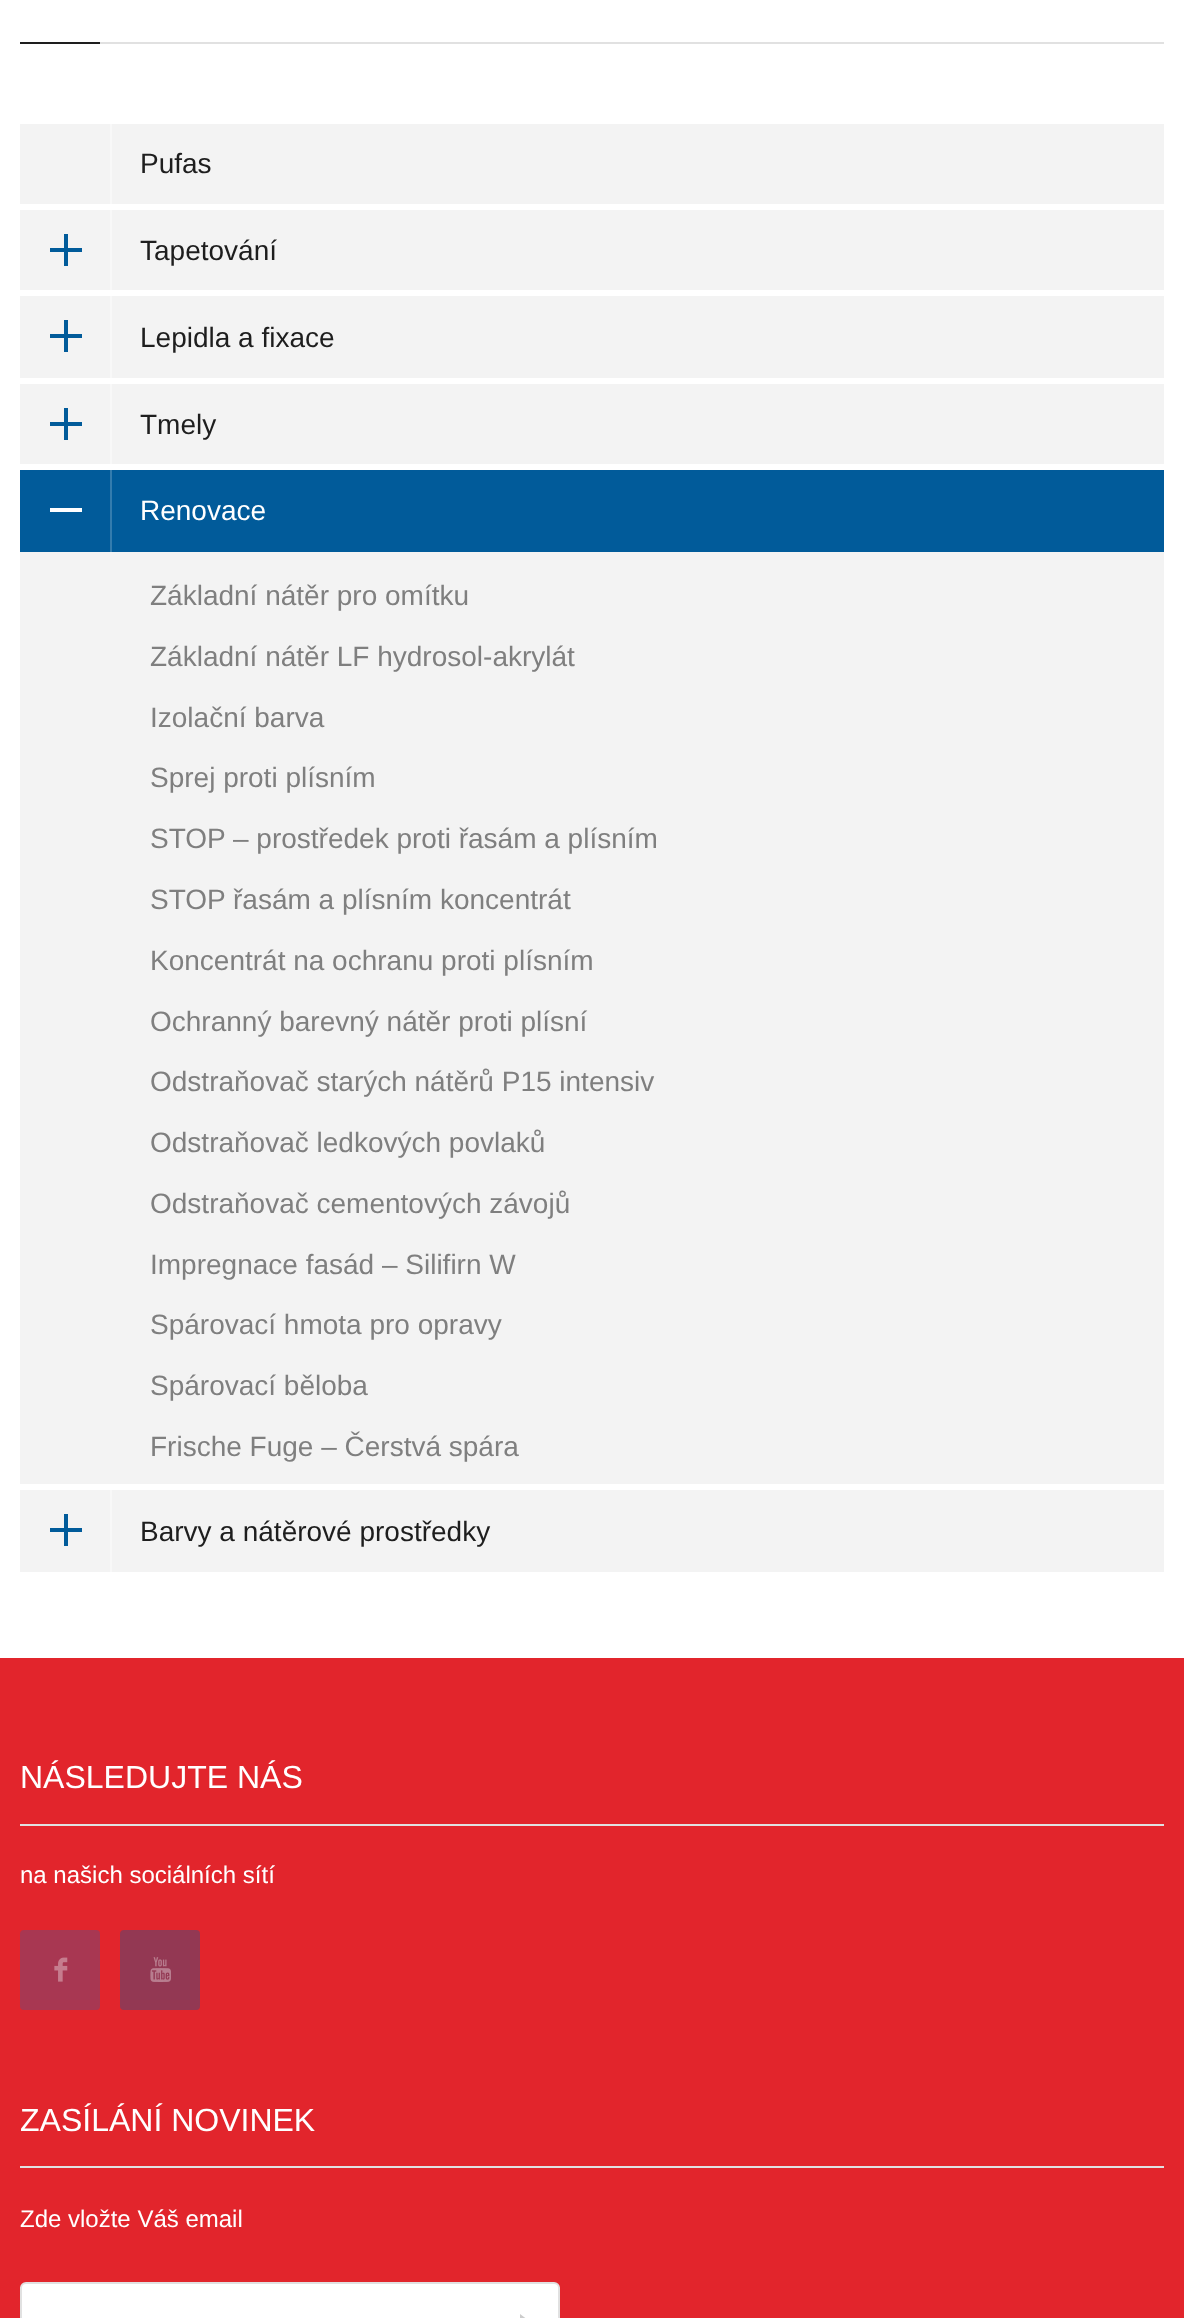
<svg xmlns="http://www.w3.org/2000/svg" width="1184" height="2318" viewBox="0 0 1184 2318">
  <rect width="100%" height="100%" fill="#fff"/>
  <path d="M100 42h1064v2H100z" fill="#e1e1e1"/>
  <path d="M20 42h80v2H20z" fill="#1e1e1e"/>
  <path d="M20 124h1144v80H20z" fill="#f3f3f3"/>
  <path d="M110 124h2v80H110z" fill="#f8f8f8"/>
  <path d="M20 210h1144v80H20z" fill="#f3f3f3"/>
  <path d="M50 248h32v4H50z" fill="#015b9a"/>
  <path d="M64 234h4v32H64z" fill="#015b9a"/>
  <path d="M110 210h2v80H110z" fill="#f8f8f8"/>
  <path d="M20 296h1144v82H20z" fill="#f3f3f3"/>
  <path d="M50 334h32v4H50z" fill="#015b9a"/>
  <path d="M64 320h4v32H64z" fill="#015b9a"/>
  <path d="M110 296h2v82H110z" fill="#f8f8f8"/>
  <path d="M20 384h1144v80H20z" fill="#f3f3f3"/>
  <path d="M50 422h32v4H50z" fill="#015b9a"/>
  <path d="M64 408h4v32H64z" fill="#015b9a"/>
  <path d="M110 384h2v80H110z" fill="#f8f8f8"/>
  <path d="M20 470h1144v82H20z" fill="#015b9a"/>
  <path d="M50 508h32v4H50z" fill="#fff"/>
  <path d="M110 470h2v82H110z" fill="#347cae"/>
  <path d="M20 552h1144v932H20z" fill="#f3f3f3"/>
  <path d="M20 1490h1144v82H20z" fill="#f3f3f3"/>
  <path d="M50 1528h32v4H50z" fill="#015b9a"/>
  <path d="M64 1514h4v32H64z" fill="#015b9a"/>
  <path d="M110 1490h2v82H110z" fill="#f8f8f8"/>
  <path d="M0 1658h1184v660H0z" fill="#e2252c"/>
  <path d="M20 1824h1144v2H20z" fill="#e1e1e1"/>
  <rect x="20" y="1930" width="80" height="80" rx="4" fill="#a83752"/>
  <image x="54" y="1957" width="14" height="25" href="img/1.png"/>
  <rect x="120" y="1930" width="80" height="80" rx="4" fill="#933853"/>
  <image x="150" y="1957" width="21" height="25" href="img/2.png"/>
  <path d="M20 2166h1144v2H20z" fill="#e1e1e1"/>
  <rect x="21" y="2283" width="538" height="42" rx="5" fill="#fff" stroke="#e1e1e1" stroke-width="2"/>
  <path d="M508 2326V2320H520V2314L532 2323L520 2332V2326Z" fill="#ccc"/>
  <g font-family="Arimo" font-size="28" fill="#1e1e1e">
    <text x="140" y="173">Pufas</text>
    <text x="140" y="260">Tapetování</text>
    <text x="140" y="347">Lepidla a fixace</text>
    <text x="140" y="434">Tmely</text>
  </g>
  <text x="140" y="520" font-family="Arimo" font-size="28" fill="#fff">Renovace</text>
  <g font-family="Arimo" font-size="28" fill="#7f7f7f">
    <text x="150" y="605">Základní nátěr pro omítku</text>
    <text x="150" y="666">Základní nátěr LF hydrosol-akrylát</text>
    <text x="150" y="727">Izolační barva</text>
    <text x="150" y="787">Sprej proti plísním</text>
    <text x="150" y="848">STOP – prostředek proti řasám a plísním</text>
    <text x="150" y="909">STOP řasám a plísním koncentrát</text>
    <text x="150" y="970">Koncentrát na ochranu proti plísním</text>
    <text x="150" y="1031">Ochranný barevný nátěr proti plísní</text>
    <text x="150" y="1091">Odstraňovač starých nátěrů P15 intensiv</text>
    <text x="150" y="1152">Odstraňovač ledkových povlaků</text>
    <text x="150" y="1213">Odstraňovač cementových závojů</text>
    <text x="150" y="1274">Impregnace fasád – Silifirn W</text>
    <text x="150" y="1334">Spárovací hmota pro opravy</text>
    <text x="150" y="1395">Spárovací běloba</text>
    <text x="150" y="1456">Frische Fuge – Čerstvá spára</text>
  </g>
  <text x="140" y="1541" font-family="Arimo" font-size="28" fill="#1e1e1e">Barvy a nátěrové prostředky</text>
  <text x="20" y="1788" font-family="Arimo" font-size="32" fill="#fff">NÁSLEDUJTE NÁS</text>
  <text x="20" y="1883" font-family="Arimo" font-size="24" fill="#fff">na našich sociálních sítí</text>
  <text x="20" y="2131" font-family="Arimo" font-size="32" fill="#fff">ZASÍLÁNÍ NOVINEK</text>
  <text x="20" y="2227" font-family="Arimo" font-size="24" fill="#fff">Zde vložte Váš email</text>
</svg>
